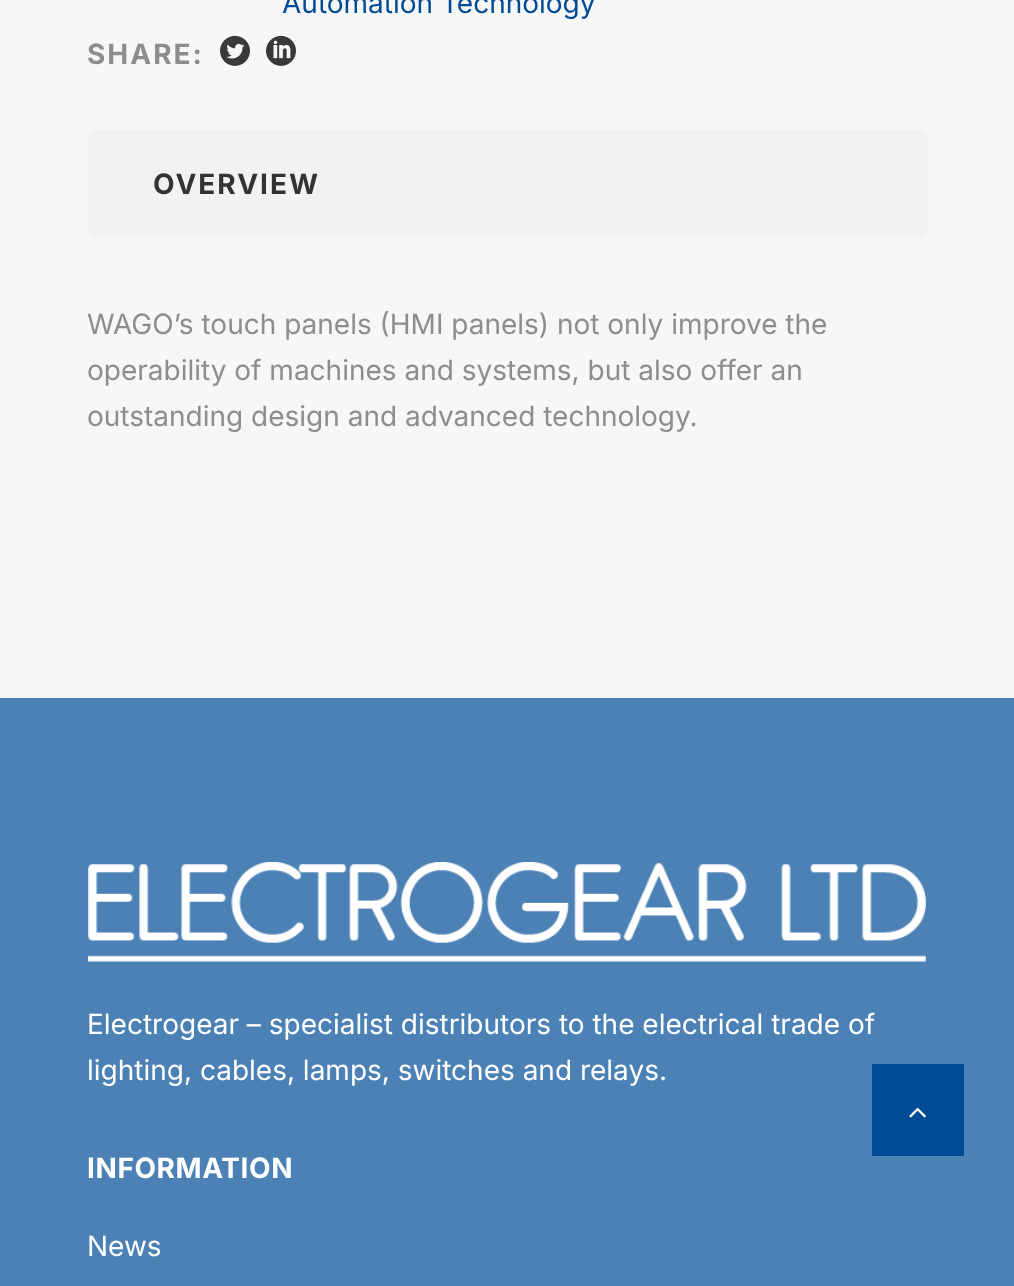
<svg xmlns="http://www.w3.org/2000/svg" width="1014" height="1286" viewBox="0 0 1014 1286">
  <rect width="100%" height="100%" fill="#f7f7f7"/>
  <image x="220" y="35" width="30" height="31" href="img/1.png"/>
  <image x="266" y="35" width="30" height="31" href="img/2.png"/>
  <rect x="88" y="130" width="840" height="106" rx="8" fill="#f2f2f2"/>
  <path d="M0 698h1014v588H0z" fill="#4c81b6"/>
  <path d="M872 1064h92v92H872z" fill="#004b96"/>
  <image x="909" y="1107" width="17" height="11" href="img/3.png"/>
  <image x="88" y="862" width="838" height="100" href="img/4.png"/>
  <text x="282" y="13" font-family="Inter" font-size="28" fill="#004b96">Automation Technology</text>
  <text x="87" y="64" font-family="Inter" font-size="28" font-weight="bold" letter-spacing="2" fill="#8d8d8d">SHARE:</text>
  <text x="153" y="194" font-family="Inter" font-size="28" font-weight="bold" letter-spacing="2" fill="#333">OVERVIEW</text>
  <g font-family="Inter" font-size="28" fill="#8d8d8d">
    <text x="87" y="334">WAGO’s touch panels (HMI panels) not only improve the</text>
    <text x="87" y="380">operability of machines and systems, but also offer an</text>
    <text x="87" y="426">outstanding design and advanced technology.</text>
  </g>
  <g font-family="Inter" font-size="28" fill="#fff">
    <text x="87" y="1034">Electrogear – specialist distributors to the electrical trade of</text>
    <text x="87" y="1080">lighting, cables, lamps, switches and relays.</text>
  </g>
  <text x="87" y="1178" font-family="Inter" font-size="28" font-weight="bold" letter-spacing="0.6" fill="#fff">INFORMATION</text>
  <text x="87" y="1256" font-family="Inter" font-size="28" fill="#fff">News</text>
</svg>
